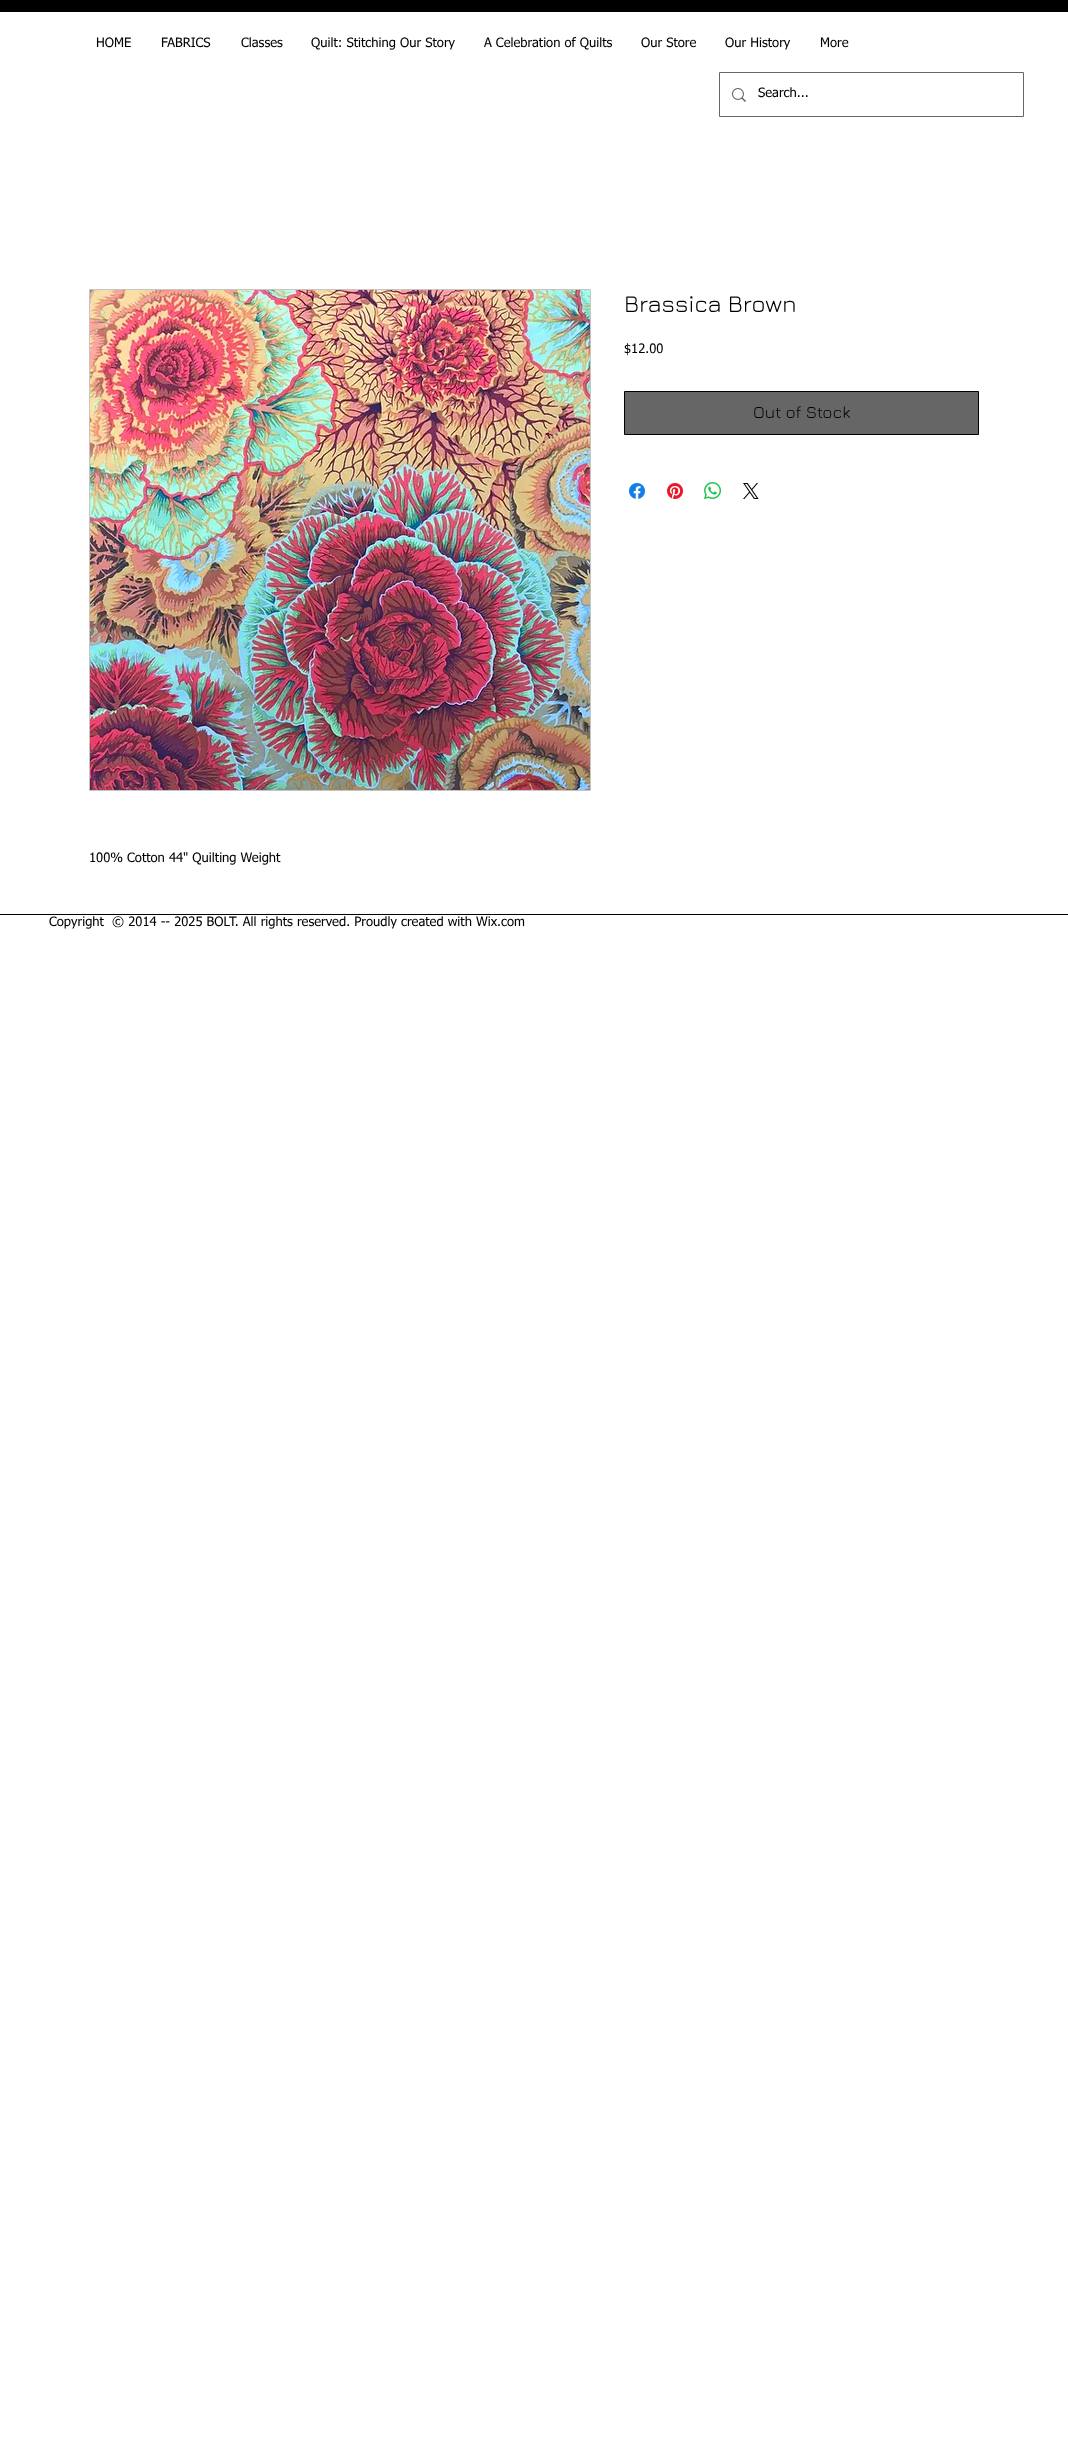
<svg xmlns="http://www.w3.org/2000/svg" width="1068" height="2461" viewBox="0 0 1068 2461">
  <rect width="100%" height="100%" fill="#fff"/>
  <path d="M0 0h1068v12H0z" fill="#000"/>
  <path d="M719.5 72.5h304v44H719.5z" fill="none" stroke="#666"/>
  <image x="732" y="88" width="14" height="14" href="img/1.png"/>
  <path d="M624.5 391.5h354v43H624.5z" fill="#666" stroke="#000"/>
  <image x="629" y="483" width="16" height="16" href="img/2.png"/>
  <image x="667" y="483" width="16" height="16" href="img/3.png"/>
  <image x="704" y="482" width="17" height="17" href="img/4.png"/>
  <image x="743" y="483" width="16" height="16" href="img/5.png"/>
  <path d="M89.5 289.5h501v501H89.5z" fill="none" stroke="#c6c5c5"/>
  <image x="90" y="290" width="500" height="500" href="img/6.png"/>
  <path d="M0 914h1068v1H0z" fill="#000"/>
  <g font-family="tahoma" font-size="13" fill="#000">
    <text x="96" y="47">HOME</text>
    <text x="161" y="47">FABRICS</text>
    <text x="241" y="47">Classes</text>
    <text x="311" y="47">Quilt: Stitching Our Story</text>
    <text x="484" y="47">A Celebration of Quilts</text>
    <text x="641" y="47">Our Store</text>
    <text x="725" y="47">Our History</text>
    <text x="820" y="47">More</text>
    <text x="758" y="97">Search...</text>
  </g>
  <text x="624" y="312" font-family="Jura" font-size="24" fill="#000">Brassica Brown</text>
  <text x="624" y="353" font-family="tahoma" font-size="13" fill="#000">$12.00</text>
  <text x="753" y="418" font-family="Jura" font-size="17" fill="#000">Out of Stock</text>
  <g font-family="tahoma" font-size="13" fill="#000">
    <text x="89" y="862">100% Cotton 44" Quilting Weight</text>
    <text x="49" y="926" xml:space="preserve">Copyright  © 2014 -- 2025 BOLT. All rights reserved. Proudly created with Wix.com</text>
  </g>
</svg>
